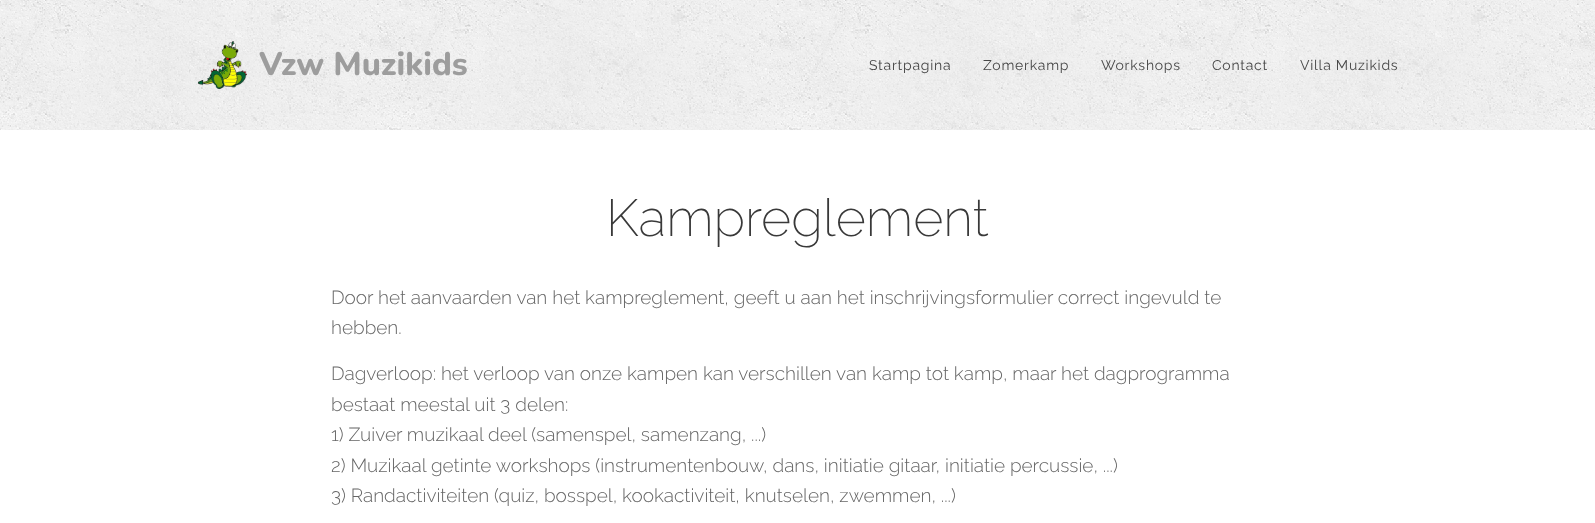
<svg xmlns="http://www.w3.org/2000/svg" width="1595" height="523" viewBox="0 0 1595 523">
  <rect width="100%" height="100%" fill="#fff"/>
  <image x="0" y="0" width="1595" height="130" href="img/1.png"/>
  <image x="198" y="41" width="49" height="48" href="img/2.png"/>
  <text x="259" y="75" font-family="Nunito" font-size="32.5" font-weight="800" fill="#9d9d9d">Vzw Muzikids</text>
  <g font-family="Raleway" font-size="14" letter-spacing="0.75" fill="#474747">
    <text x="869" y="70">Startpagina</text>
    <text x="983" y="70">Zomerkamp</text>
    <text x="1101" y="70">Workshops</text>
    <text x="1212" y="70">Contact</text>
    <text x="1300" y="70">Villa Muzikids</text>
  </g>
  <text x="606" y="236" font-family="Raleway" font-size="52" font-weight="200" fill="#393939">Kampreglement</text>
  <g font-family="Raleway" font-size="19" font-weight="300" fill="#666">
    <text x="331" y="304">Door het aanvaarden van het kampreglement, geeft u aan het inschrijvingsformulier correct ingevuld te</text>
    <text x="331" y="334">hebben.</text>
    <text x="331" y="380">Dagverloop: het verloop van onze kampen kan verschillen van kamp tot kamp, maar het dagprogramma</text>
    <text x="331" y="411">bestaat meestal uit 3 delen:</text>
    <text x="331" y="441">1) Zuiver muzikaal deel (samenspel, samenzang, ...)</text>
    <text x="331" y="472">2) Muzikaal getinte workshops (instrumentenbouw, dans, initiatie gitaar, initiatie percussie, ...)</text>
    <text x="331" y="502">3) Randactiviteiten (quiz, bosspel, kookactiviteit, knutselen, zwemmen, ...)</text>
  </g>
</svg>
